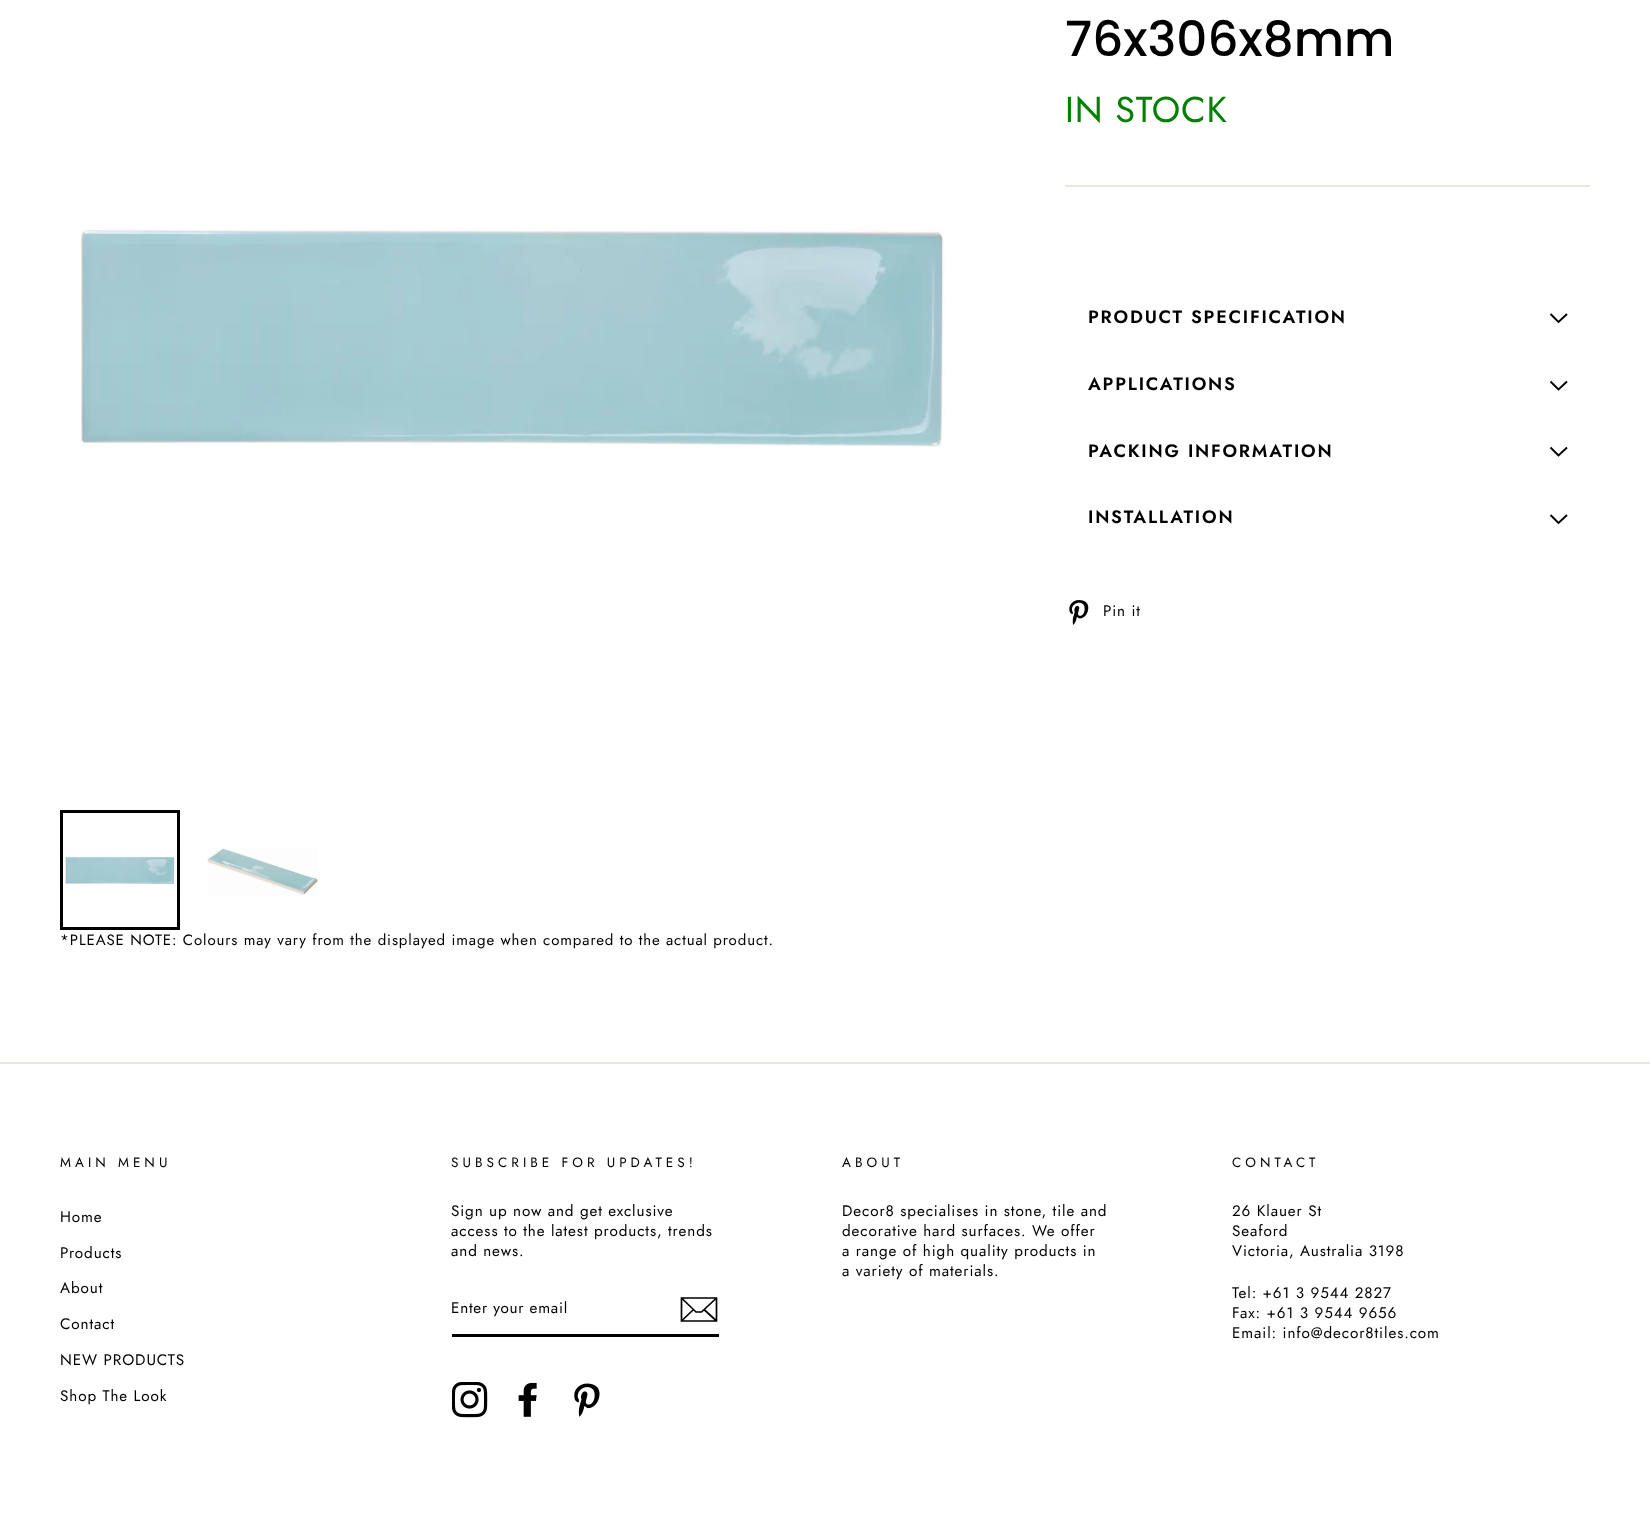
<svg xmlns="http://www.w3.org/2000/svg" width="1650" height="1529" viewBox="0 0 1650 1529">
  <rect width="100%" height="100%" fill="#fff"/>
  <path d="M1065 185h525v2H1065z" fill="#e8e8e1"/>
  <path d="M1550.5 314L1558.5 322L1567 314" fill="none" stroke="#000" stroke-width="1.9"/>
  <path d="M1550.5 381.5L1558.5 389.5L1567 381.5" fill="none" stroke="#000" stroke-width="1.9"/>
  <path d="M1550.5 447.5L1558.5 455.5L1567 447.5" fill="none" stroke="#000" stroke-width="1.9"/>
  <path d="M1550.5 515L1558.5 523L1567 515" fill="none" stroke="#000" stroke-width="1.9"/>
  <image x="1069" y="600" width="20" height="25" href="img/1.png"/>
  <image x="80" y="228" width="866" height="219" href="img/2.png"/>
  <path d="M61.5 811.5h117v117H61.5z" fill="none" stroke="#000" stroke-width="3"/>
  <image x="65" y="856" width="110" height="29" href="img/3.png"/>
  <image x="207" y="848" width="111" height="47" href="img/4.png"/>
  <path d="M0 1062h1650v2H0z" fill="#e8e8e1"/>
  <path d="M452 1334h267v3H452z" fill="#000"/>
  <path d="M716.5 1321H681.5V1298H716.5ZM681.5 1298L696 1312H701.5L716.5 1298M693.5 1309.5L682 1320.5M716 1320.5L704 1309.5" fill="none" stroke="#000" stroke-width="1.7"/>
  <image x="452" y="1382" width="36" height="36" href="img/5.png"/>
  <image x="518" y="1382" width="19" height="35" href="img/6.png"/>
  <image x="574" y="1383" width="26" height="34" href="img/7.png"/>
  <text x="1065" y="56" font-family="Poppins" font-size="48.5" font-weight="500" fill="#000">76x306x8mm</text>
  <text x="1065" y="122" font-family="Jost" font-size="36" letter-spacing="0.9" fill="#008000">IN STOCK</text>
  <g font-family="Jost" font-size="18" font-weight="600" letter-spacing="1.8" fill="#000">
    <text x="1088" y="323">PRODUCT SPECIFICATION</text>
    <text x="1088" y="390">APPLICATIONS</text>
    <text x="1088" y="457">PACKING INFORMATION</text>
    <text x="1088" y="523">INSTALLATION</text>
  </g>
  <text x="1103" y="616" font-family="Jost" font-size="15.25" letter-spacing="0.9" fill="#000">Pin it</text>
  <text x="60" y="945" font-family="Jost" font-size="15" letter-spacing="0.9" fill="#000">*PLEASE NOTE: Colours may vary from the displayed image when compared to the actual product.</text>
  <text x="60" y="1167" font-family="Jost" font-size="13.5" letter-spacing="4.05" fill="#000">MAIN MENU</text>
  <g font-family="Jost" font-size="15.25" letter-spacing="0.9" fill="#000">
    <text x="60" y="1222">Home</text>
    <text x="60" y="1258">Products</text>
    <text x="60" y="1293">About</text>
    <text x="60" y="1329">Contact</text>
    <text x="60" y="1365">NEW PRODUCTS</text>
    <text x="60" y="1401">Shop The Look</text>
  </g>
  <text x="451" y="1167" font-family="Jost" font-size="13.5" letter-spacing="4.05" fill="#000">SUBSCRIBE FOR UPDATES!</text>
  <g font-family="Jost" font-size="15.25" letter-spacing="0.9" fill="#000">
    <text x="451" y="1216">Sign up now and get exclusive</text>
    <text x="451" y="1236">access to the latest products, trends</text>
    <text x="451" y="1256">and news.</text>
  </g>
  <text x="451" y="1313" font-family="Jost" font-size="15.25" letter-spacing="0.75" fill="#000">Enter your email</text>
  <text x="842" y="1167" font-family="Jost" font-size="13.5" letter-spacing="4.05" fill="#000">ABOUT</text>
  <g font-family="Jost" font-size="15.25" letter-spacing="0.9" fill="#000">
    <text x="842" y="1216">Decor8 specialises in stone, tile and</text>
    <text x="842" y="1236">decorative hard surfaces. We offer</text>
    <text x="842" y="1256">a range of high quality products in</text>
    <text x="842" y="1276">a variety of materials.</text>
  </g>
  <text x="1232" y="1167" font-family="Jost" font-size="13.5" letter-spacing="4.05" fill="#000">CONTACT</text>
  <g font-family="Jost" font-size="15.25" letter-spacing="0.9" fill="#000">
    <text x="1232" y="1216">26 Klauer St</text>
    <text x="1232" y="1236">Seaford</text>
    <text x="1232" y="1256">Victoria, Australia 3198</text>
    <text x="1232" y="1298">Tel: +61 3 9544 2827</text>
    <text x="1232" y="1318">Fax: +61 3 9544 9656</text>
    <text x="1232" y="1338">Email: info@decor8tiles.com</text>
  </g>
</svg>
